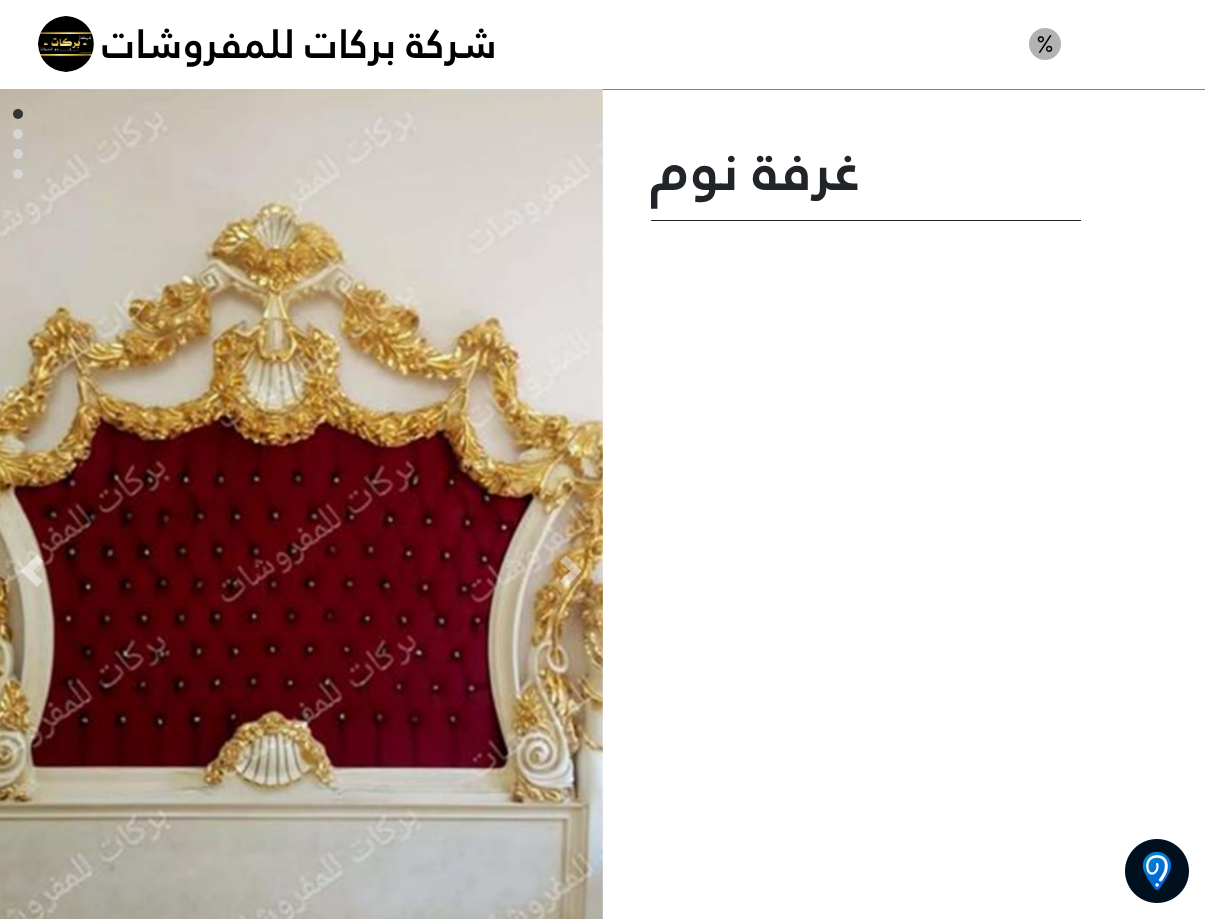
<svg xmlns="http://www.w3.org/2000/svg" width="1205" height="919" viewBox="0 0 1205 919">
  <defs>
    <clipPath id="clip1"><path d="M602 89h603v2H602z"/></clipPath>
  </defs>
  <rect width="100%" height="100%" fill="#fff"/>
  <g clip-path="url(#clip1)">
    <path d="M0 1h1205v89H0z" fill="#808080" filter="blur(0.5px)"/>
  </g>
  <image x="1029" y="28" width="32" height="32" href="img/1.png"/>
  <image x="38" y="16" width="56" height="56" href="img/2.png"/>
  <path d="M651 220h430v1H651z" fill="#212529"/>
  <image x="0" y="89" width="603" height="830" href="img/3.png"/>
  <circle cx="18" cy="114" r="5" fill="#333"/>
  <circle cx="18" cy="134" r="5" fill="#d6d4d4"/>
  <circle cx="18" cy="154" r="5" fill="#d6d4d4"/>
  <circle cx="18" cy="174" r="5" fill="#d6d4d4"/>
  <path d="M566 555L560 561L570 571L560 581L566 587L582 571Z" fill="#ffffff80"/>
  <path d="M37 555L21 571L37 587L43 581L33 571L43 561Z" fill="#ffffff80"/>
  <image x="1125" y="839" width="64" height="64" href="img/4.png"/>
  <text x="497" y="58" font-family="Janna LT" font-size="40" font-weight="bold" direction="rtl" fill="#000">شركة بركات للمفروشات</text>
  <text x="860" y="190" font-family="Janna LT" font-size="56" font-weight="bold" direction="rtl" fill="#212529">غرفة نوم</text>
</svg>
